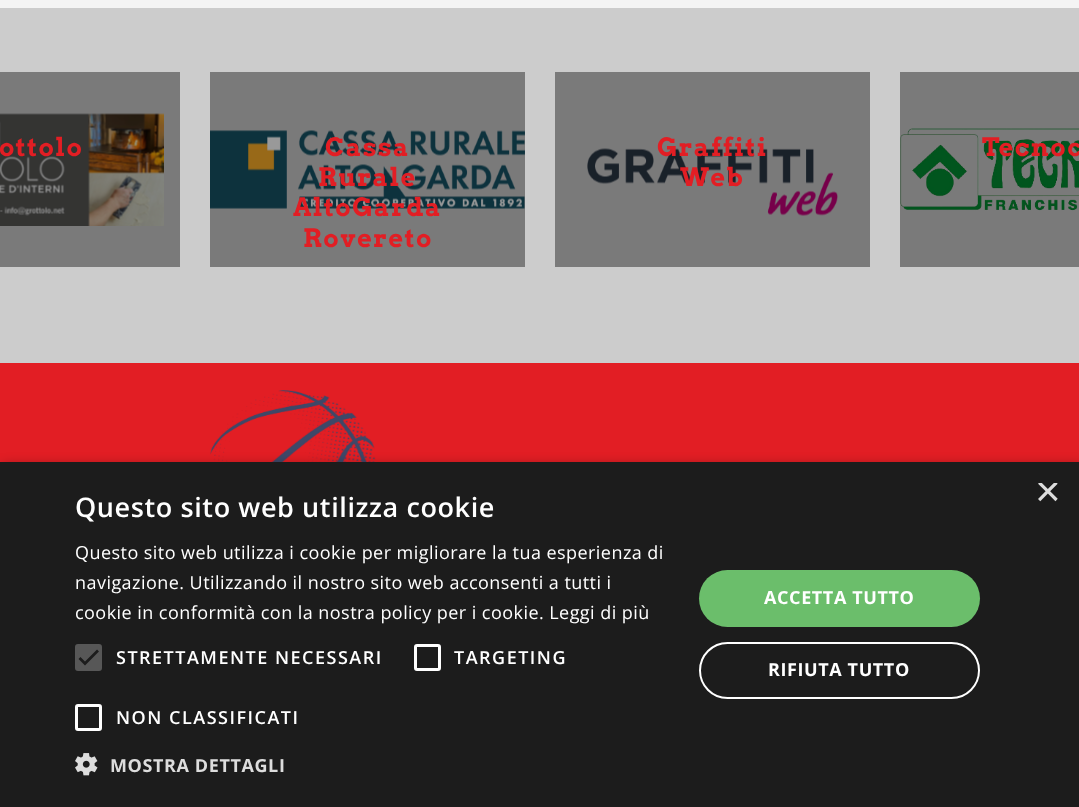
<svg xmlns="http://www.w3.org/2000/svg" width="1079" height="807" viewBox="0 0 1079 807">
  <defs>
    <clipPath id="clip1"><path d="M1035 483h23v23H1035z"/></clipPath>
  </defs>
  <rect width="100%" height="100%" fill="#f4f4f4"/>
  <path d="M0 8h1079v355H0z" fill="#ccc"/>
  <path d="M900 72h179v195H900z" fill="#7a7a7a"/>
  <path d="M555 72h315v195H555z" fill="#7a7a7a"/>
  <path d="M210 72h315v195H210z" fill="#7a7a7a"/>
  <path d="M0 72h180v195H0z" fill="#7a7a7a"/>
  <image x="0" y="113" width="164" height="113" href="img/1.png"/>
  <image x="210" y="130" width="315" height="79" href="img/2.png"/>
  <image x="587" y="148" width="251" height="68" href="img/3.png"/>
  <image x="900" y="128" width="179" height="83" href="img/4.png"/>
  <path d="M0 363h1079v99H0z" fill="#e21e24"/>
  <image x="210" y="390" width="166" height="72" href="img/5.png"/>
  <path d="M2 465h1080v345H2z" fill="#00000059" filter="blur(6px)"/>
  <path d="M0 462h1079v345H0z" fill="#1c1c1c"/>
  <rect x="75" y="644" width="27" height="27" rx="3" fill="#575757"/>
  <path d="M79.5 658L85 663.5L98 650.5" fill="none" stroke="#1c1c1c" stroke-width="2.7"/>
  <rect x="415.5" y="645.5" width="24" height="24" rx="1.5" fill="none" stroke="#fff" stroke-width="3"/>
  <rect x="76.5" y="705.5" width="24" height="24" rx="1.5" fill="none" stroke="#fff" stroke-width="3"/>
  <image x="75" y="753" width="23" height="23" href="img/6.png"/>
  <rect x="699" y="570" width="281" height="57" rx="28.5" fill="#6bbe6b"/>
  <rect x="700" y="643" width="279" height="55" rx="27.5" fill="none" stroke="#fff" stroke-width="2"/>
  <g font-family="Arvo" font-size="25.25" font-weight="bold" letter-spacing="1.5" fill="#e21e24">
    <text x="-1" y="156">ottolo</text>
    <text x="325" y="156">Cassa</text>
    <text x="318" y="186">Rurale</text>
    <text x="293" y="216">AltoGarda</text>
    <text x="303" y="247">Rovereto</text>
    <text x="657" y="156">Graffiti</text>
    <text x="680" y="186">Web</text>
    <text x="982" y="156">Tecnoc</text>
  </g>
  <g clip-path="url(#clip1)">
    <text x="1035" y="506" font-family="Liberation Sans" font-size="44" fill="#ddd">×</text>
  </g>
  <text x="75" y="517" font-family="Open Sans" font-size="27" font-weight="600" letter-spacing="0.6" fill="#fff">Questo sito web utilizza cookie</text>
  <g font-family="Open Sans" font-size="18" letter-spacing="0.45" fill="#fff">
    <text x="75" y="559">Questo sito web utilizza i cookie per migliorare la tua esperienza di</text>
    <text x="75" y="589">navigazione. Utilizzando il nostro sito web acconsenti a tutti i</text>
    <text x="75" y="619">cookie in conformità con la nostra policy per i cookie. Leggi di più</text>
  </g>
  <g font-family="Open Sans" font-size="18" font-weight="600" letter-spacing="1.5" fill="#fff">
    <text x="116" y="664">STRETTAMENTE NECESSARI</text>
    <text x="454" y="664">TARGETING</text>
    <text x="116" y="724">NON CLASSIFICATI</text>
  </g>
  <text x="110" y="772" font-family="Open Sans" font-size="18" font-weight="bold" letter-spacing="0.6" fill="#ddd">MOSTRA DETTAGLI</text>
  <g font-family="Open Sans" font-size="18" font-weight="bold" letter-spacing="0.6" fill="#fff">
    <text x="764" y="604">ACCETTA TUTTO</text>
    <text x="768" y="676">RIFIUTA TUTTO</text>
  </g>
</svg>
